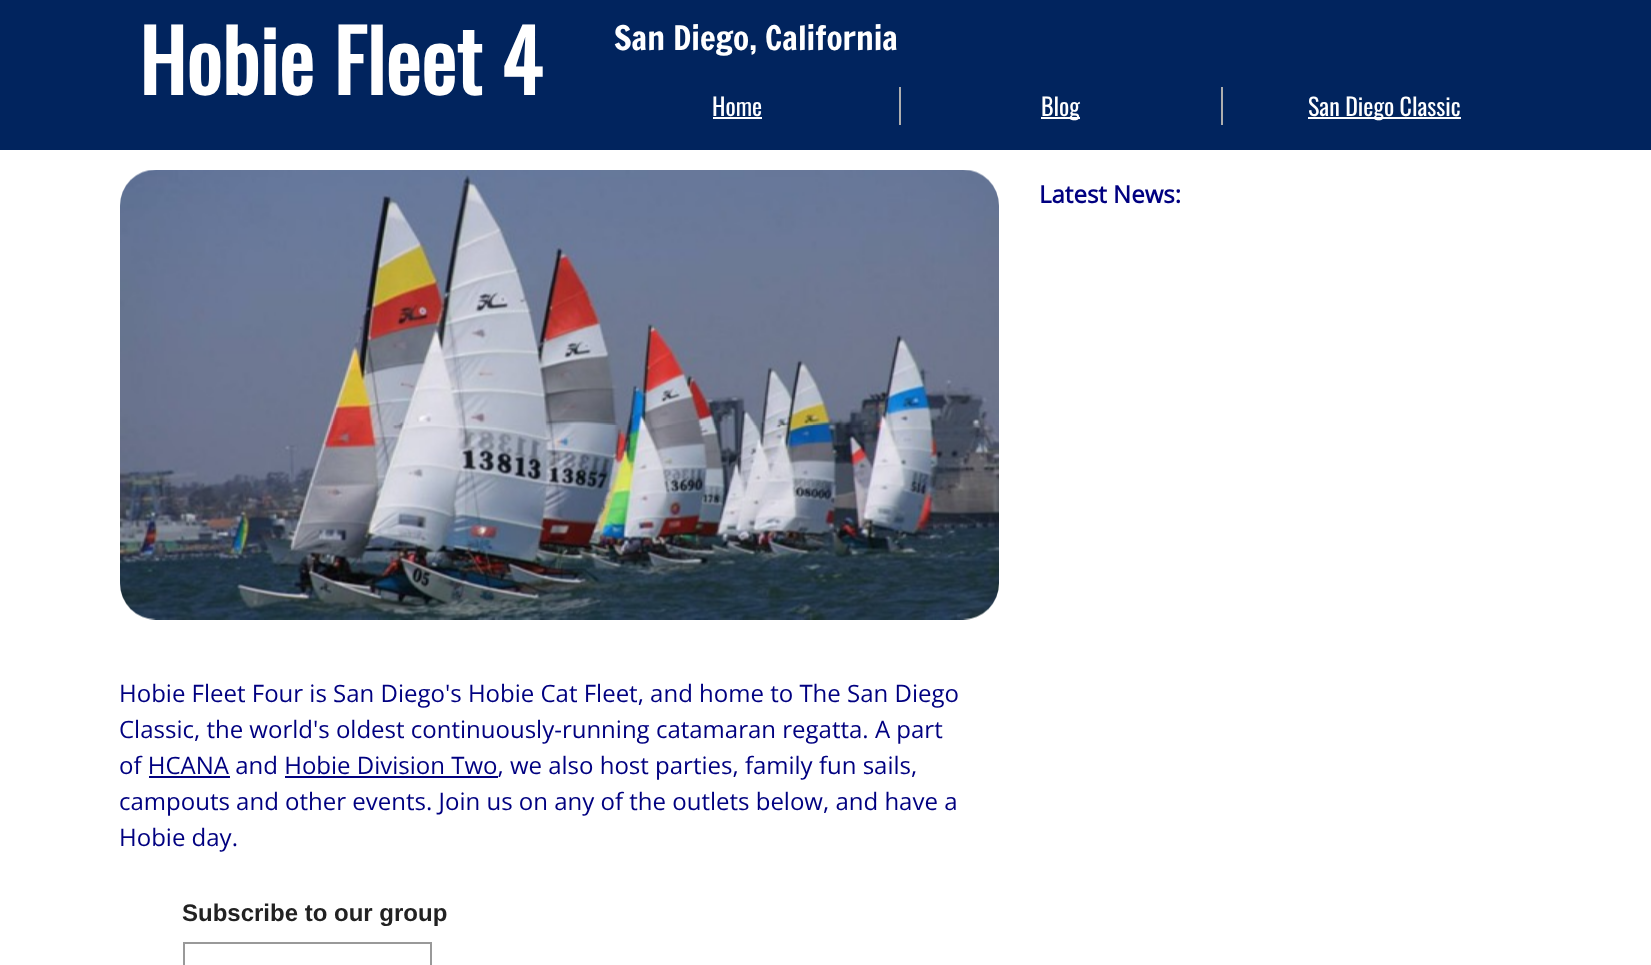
<svg xmlns="http://www.w3.org/2000/svg" width="1651" height="965" viewBox="0 0 1651 965">
  <rect width="100%" height="100%" fill="#fff"/>
  <path d="M0 0h1651v150H0z" fill="#01245e"/>
  <path d="M899 87h2v38H899z" fill="#aeaeae"/>
  <path d="M713 117h49v2H713z" fill="#fff"/>
  <path d="M1221 87h2v38H1221z" fill="#aeaeae"/>
  <path d="M1041 117h39v2H1041z" fill="#fff"/>
  <path d="M1308 117h153v2H1308z" fill="#fff"/>
  <image x="120" y="170" width="879" height="450" href="img/1.png"/>
  <path d="M149 776h81v2H149z" fill="#000080"/>
  <path d="M285 776h213v2H285z" fill="#000080"/>
  <path d="M184 943h247v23H184z" fill="none" stroke="#999" stroke-width="2"/>
  <text x="139" y="95" font-family="Oswald" font-size="84" font-weight="bold" fill="#fff">Hobie Fleet 4</text>
  <text x="614" y="50" font-family="Francois One" font-size="33" fill="#fff">San Diego, California</text>
  <g font-family="Oswald" font-size="24" fill="#fff">
    <text x="712" y="116">Home</text>
    <text x="1041" y="116">Blog</text>
    <text x="1308" y="116">San Diego Classic</text>
  </g>
  <text x="1039" y="203" font-family="Open Sans" font-size="24" font-weight="bold" fill="#000080">Latest News:</text>
  <g font-family="Open Sans" font-size="24" fill="#000080">
    <text x="119" y="702">Hobie Fleet Four is San Diego's Hobie Cat Fleet, and home to The San Diego</text>
    <text x="119" y="738">Classic, the world's oldest continuously-running catamaran regatta. A part</text>
    <text x="119" y="774">of HCANA and Hobie Division Two, we also host parties, family fun sails,</text>
    <text x="119" y="810">campouts and other events. Join us on any of the outlets below, and have a</text>
    <text x="119" y="846">Hobie day.</text>
  </g>
  <text x="182" y="921" font-family="Liberation Sans" font-size="24" font-weight="bold" fill="#222">Subscribe to our group</text>
</svg>
